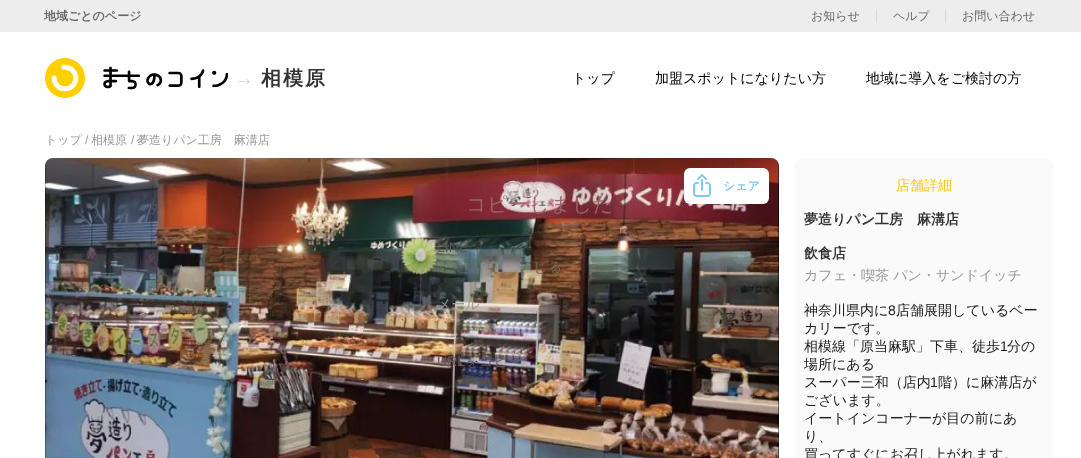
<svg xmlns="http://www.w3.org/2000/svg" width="1081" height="458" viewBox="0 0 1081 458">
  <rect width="100%" height="100%" fill="#fff"/>
  <path d="M0 0h1081v32H0z" fill="#ededed"/>
  <path d="M876 9h1v14H876z" fill="#d8d8d8"/>
  <path d="M945 9h1v14H945z" fill="#d8d8d8"/>
  <image x="45" y="58" width="40" height="40" href="img/1.png"/>
  <image x="103" y="66" width="126" height="24" href="img/2.png"/>
  <image x="45" y="158" width="734" height="300" href="img/3.png"/>
  <rect x="684" y="168" width="85" height="36" rx="6" fill="#fff"/>
  <image x="693" y="174" width="18" height="23" href="img/4.png"/>
  <rect x="795" y="158" width="258" height="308" rx="8" fill="#fafafa"/>
  <text x="44" y="20" font-family="WenQuanYi Zen Hei" font-size="12" font-weight="bold" fill="#676767">地域ごとのページ</text>
  <g font-family="WenQuanYi Zen Hei" font-size="12" font-weight="500" fill="#676767">
    <text x="811" y="20">お知らせ</text>
    <text x="893" y="20">ヘルプ</text>
    <text x="962" y="20">お問い合わせ</text>
  </g>
  <text x="234" y="85" font-family="Liberation Sans" font-size="20" font-weight="bold" letter-spacing="2" fill="#d8d8d8">→</text>
  <text x="261" y="85" font-family="WenQuanYi Zen Hei" font-size="20" font-weight="bold" letter-spacing="2" fill="#333">相模原</text>
  <g font-family="WenQuanYi Zen Hei" font-size="14" font-weight="500" fill="#000">
    <text x="572" y="83">トップ</text>
    <text x="655" y="83">加盟スポットになりたい方</text>
    <text x="866" y="83">地域に導入をご検討の方</text>
  </g>
  <text x="45" y="144" font-family="WenQuanYi Zen Hei" font-size="12" font-weight="500" fill="#999">トップ</text>
  <text x="85" y="144" font-family="Liberation Sans" font-size="12" fill="#999">/</text>
  <text x="91" y="144" font-family="WenQuanYi Zen Hei" font-size="12" font-weight="500" fill="#999">相模原</text>
  <text x="131" y="144" font-family="Liberation Sans" font-size="12" fill="#999">/</text>
  <text x="137" y="144" font-family="WenQuanYi Zen Hei" font-size="12" font-weight="500" fill="#999">夢造りパン工房　麻溝店</text>
  <text x="723" y="190" font-family="WenQuanYi Zen Hei" font-size="12" font-weight="bold" fill="#7fc9ed">シェア</text>
  <text x="466" y="211" font-family="WenQuanYi Zen Hei" font-size="20" font-weight="500" letter-spacing="0.75" fill="#9d636a">コピーしました</text>
  <text x="533" y="272" font-family="WenQuanYi Zen Hei" font-size="14" font-weight="500" letter-spacing="0.75" fill="#776754">じる</text>
  <text x="437" y="252" font-family="Liberation Sans" font-size="14" fill="#4f5b55">LINE</text>
  <text x="437" y="309" font-family="WenQuanYi Zen Hei" font-size="14" font-weight="500" fill="#9b9a93">メール</text>
  <text x="437" y="366" font-family="Liberation Sans" font-size="14" fill="#6a5957">URL</text>
  <text x="465" y="366" font-family="WenQuanYi Zen Hei" font-size="14" font-weight="500" fill="#5f5a69">をコピー</text>
  <text x="896" y="190" font-family="WenQuanYi Zen Hei" font-size="14" font-weight="500" fill="#fec617">店舗詳細</text>
  <g font-family="WenQuanYi Zen Hei" font-size="14" font-weight="bold" fill="#333">
    <text x="804" y="224">夢造りパン工房　麻溝店</text>
    <text x="804" y="258">飲食店</text>
  </g>
  <text x="804" y="280" font-family="WenQuanYi Zen Hei" font-size="14" font-weight="500" fill="#999">カフェ・喫茶 パン・サンドイッチ</text>
  <text x="804" y="315" font-family="WenQuanYi Zen Hei" font-size="14" font-weight="500" fill="#212121">神奈川県内に</text>
  <text x="888" y="315" font-family="Liberation Sans" font-size="14" fill="#212121">8</text>
  <g font-family="WenQuanYi Zen Hei" font-size="14" font-weight="500" fill="#212121">
    <text x="896" y="315">店舗展開しているベー</text>
    <text x="804" y="333">カリーです。</text>
    <text x="804" y="351">相模線「原当麻駅」下車、徒歩</text>
  </g>
  <text x="1000" y="351" font-family="Liberation Sans" font-size="14" fill="#212121">1</text>
  <g font-family="WenQuanYi Zen Hei" font-size="14" font-weight="500" fill="#212121">
    <text x="1007" y="351">分の</text>
    <text x="804" y="369">場所にある</text>
    <text x="804" y="387">スーパー三和（店内</text>
  </g>
  <text x="930" y="387" font-family="Liberation Sans" font-size="14" fill="#212121">1</text>
  <g font-family="WenQuanYi Zen Hei" font-size="14" font-weight="500" fill="#212121">
    <text x="938" y="387">階）に麻溝店が</text>
    <text x="804" y="405">ございます。</text>
    <text x="804" y="423">イートインコーナーが目の前にあ</text>
    <text x="804" y="441">り、</text>
    <text x="804" y="459">買ってすぐにお召し上がれます。</text>
  </g>
</svg>
